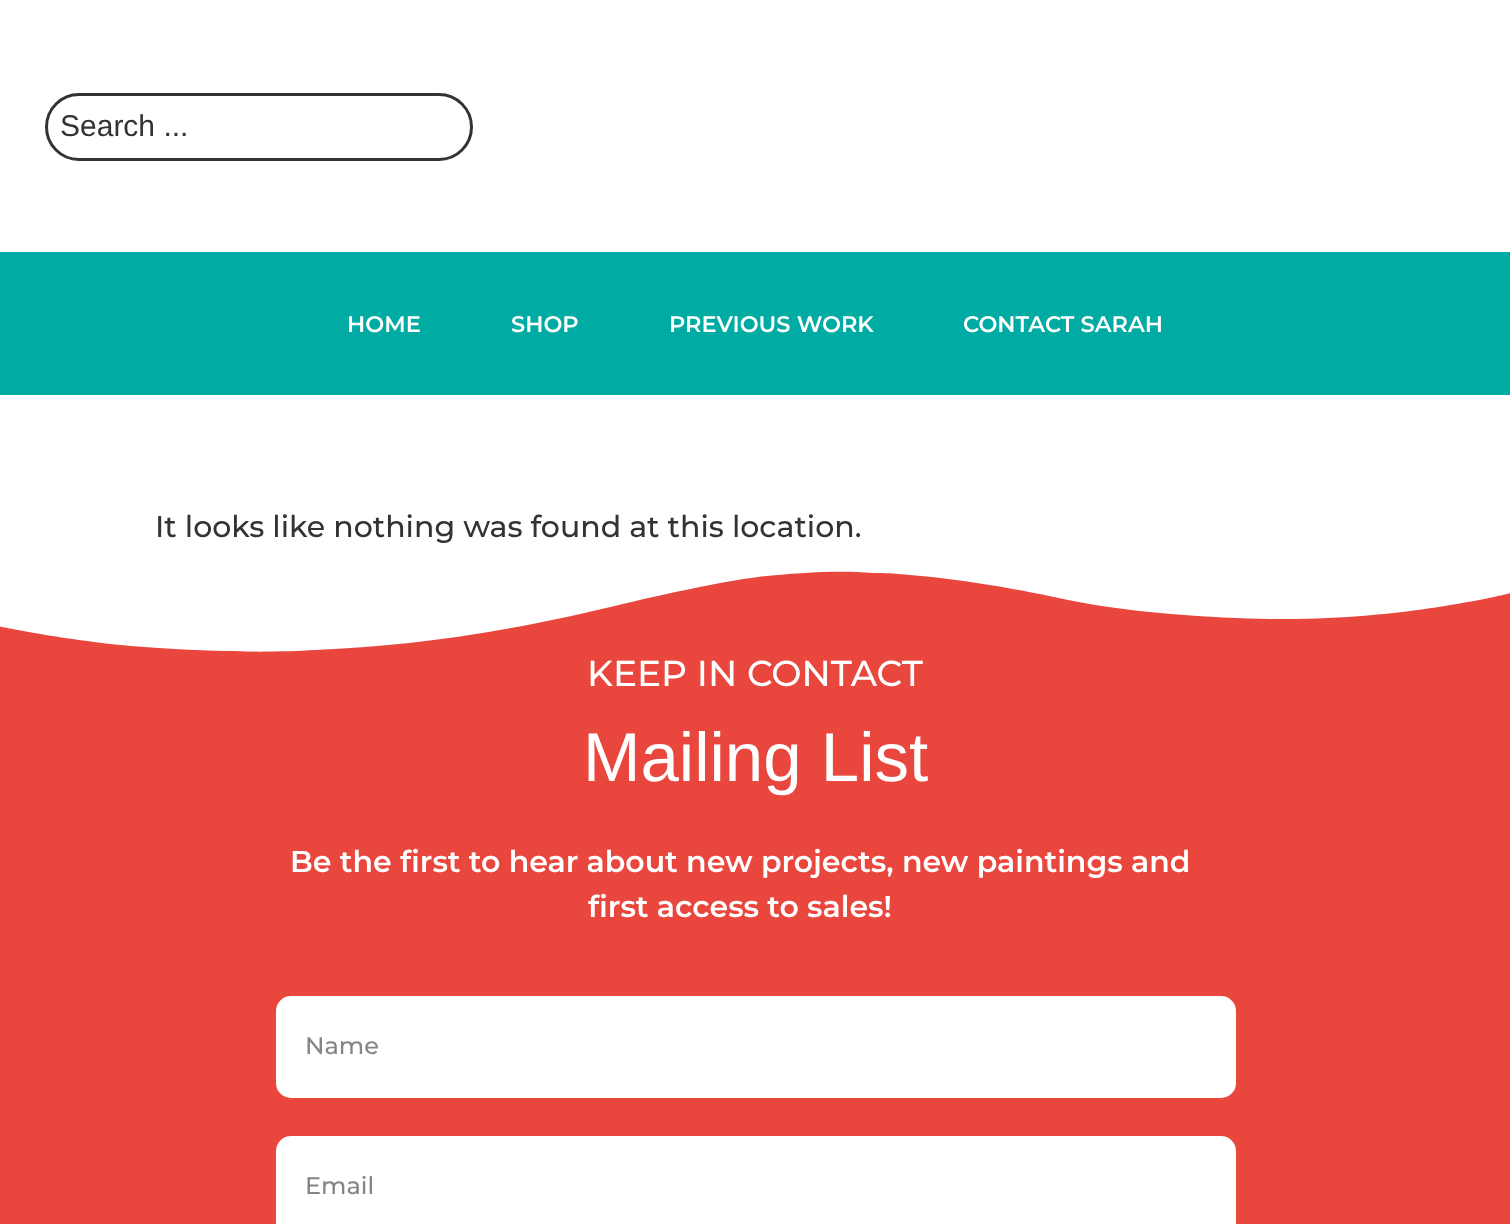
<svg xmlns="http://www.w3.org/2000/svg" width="1510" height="1224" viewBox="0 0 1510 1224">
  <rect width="100%" height="100%" fill="#fff"/>
  <rect x="46.5" y="94.5" width="425" height="65" rx="32.5" fill="none" stroke="#333" stroke-width="3"/>
  <path d="M0 252h1510v143H0z" fill="#00aba4"/>
  <path d="M0 571h1510v653H0z" fill="#e9463e"/>
  <path d="M873 573C838 570 795 573 758 577C723 581 651 597 606 608C492 635 404 646 315 650C279 652 241 653 159 648C76 643-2 626-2 626V567H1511V593C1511 593 1402 621 1271 619C1212 618 1131 613 1068 600C1036 593 990 584 948 579C907 574 888 573 873 573Z" fill="#fff"/>
  <rect x="276" y="996" width="960" height="102" rx="15" fill="#fff"/>
  <rect x="276" y="1136" width="960" height="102" rx="15" fill="#fff"/>
  <text x="60" y="136" font-family="Liberation Sans" font-size="30" fill="#333">Search ...</text>
  <g font-family="Montserrat" font-size="22.5" font-weight="600" fill="#fff">
    <text x="347" y="332">HOME</text>
    <text x="511" y="332">SHOP</text>
    <text x="669" y="332">PREVIOUS WORK</text>
    <text x="963" y="332">CONTACT SARAH</text>
  </g>
  <text x="155" y="537" font-family="Montserrat" font-size="30" font-weight="500" fill="#333">It looks like nothing was found at this location.</text>
  <text x="587" y="686" font-family="Montserrat" font-size="36" font-weight="500" fill="#fff">KEEP IN CONTACT</text>
  <text x="583" y="781" font-family="Liberation Sans" font-size="69" fill="#fff">Mailing List</text>
  <g font-family="Montserrat" font-size="30" font-weight="600" fill="#fff">
    <text x="290" y="872">Be the first to hear about new projects, new paintings and</text>
    <text x="588" y="917">first access to sales!</text>
  </g>
  <g font-family="Montserrat" font-size="24" font-weight="500" fill="#858585">
    <text x="305" y="1054">Name</text>
    <text x="305" y="1194">Email</text>
  </g>
</svg>
